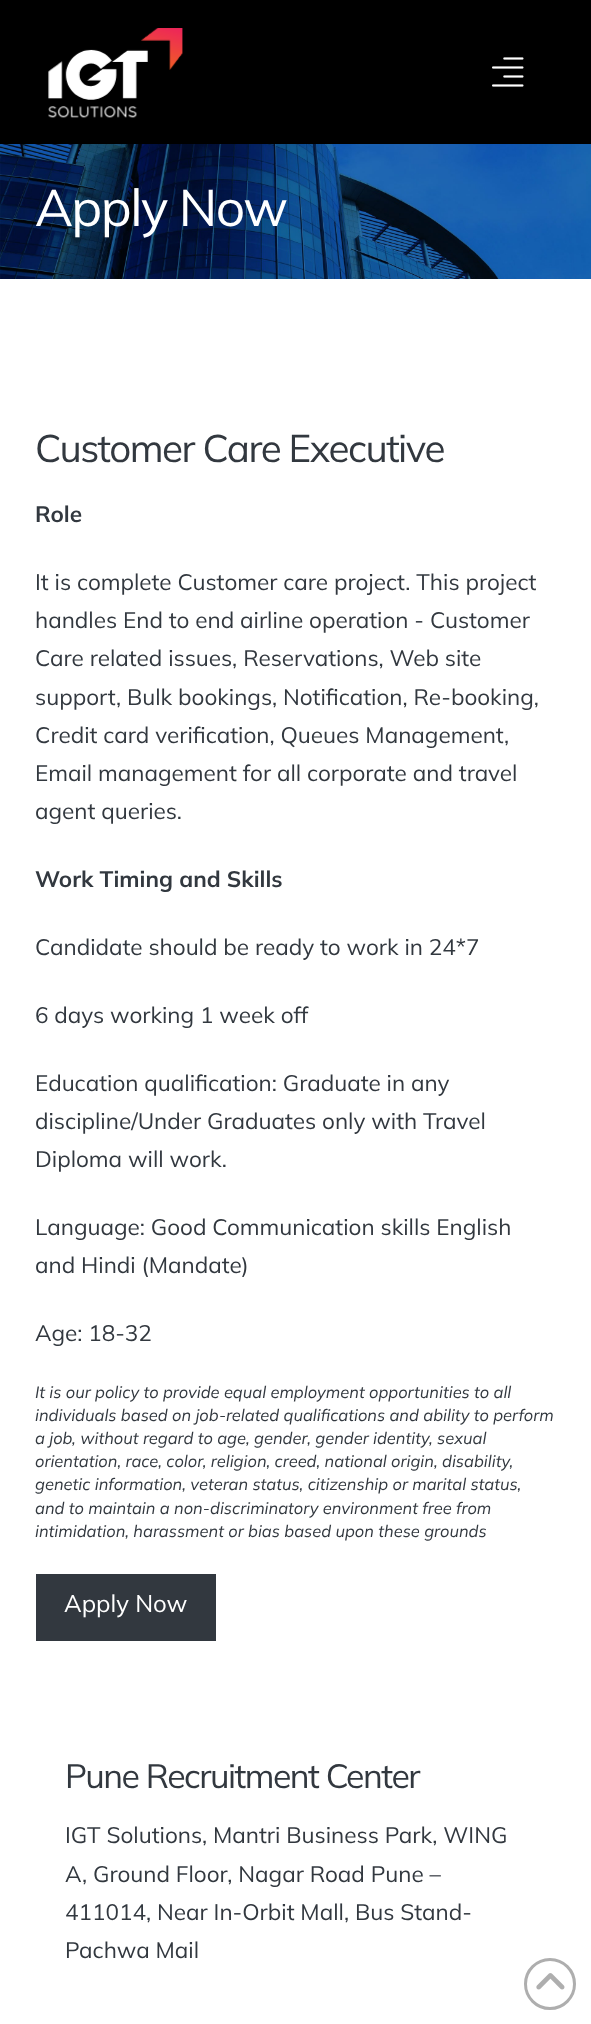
<svg xmlns="http://www.w3.org/2000/svg" width="591" height="2024" viewBox="0 0 591 2024">
  <rect width="100%" height="100%" fill="#fff"/>
  <path d="M0 0h591v144H0z" fill="#000"/>
  <image x="48" y="28" width="135" height="90" href="img/1.png"/>
  <image x="492" y="57" width="32" height="30" href="img/2.png"/>
  <image x="0" y="144" width="591" height="135" href="img/3.png"/>
  <path d="M36 1574h180v67H36z" fill="#32383f"/>
  <circle cx="550" cy="1984" r="24.5" fill="none" stroke="#aeaeae" stroke-width="3"/>
  <image x="536" y="1973" width="29" height="17" href="img/4.png"/>
  <text x="35" y="226" font-family="Mulish" font-size="51.5" letter-spacing="-1.5" fill="#fff">Apply Now</text>
  <text x="35" y="462" font-family="Mulish" font-size="38.5" letter-spacing="-1.5" fill="#32383f">Customer Care Executive</text>
  <text x="35" y="522" font-family="Mulish" font-size="22.5" font-weight="bold" fill="#32383f">Role</text>
  <g font-family="Mulish" font-size="22.5" fill="#32383f">
    <text x="35" y="590">It is complete Customer care project. This project</text>
    <text x="35" y="628">handles End to end airline operation - Customer</text>
    <text x="35" y="666">Care related issues, Reservations, Web site</text>
    <text x="35" y="705">support, Bulk bookings, Notification, Re-booking,</text>
    <text x="35" y="743">Credit card verification, Queues Management,</text>
    <text x="35" y="781">Email management for all corporate and travel</text>
    <text x="35" y="819">agent queries.</text>
  </g>
  <text x="35" y="887" font-family="Mulish" font-size="22.5" font-weight="bold" fill="#32383f">Work Timing and Skills</text>
  <g font-family="Mulish" font-size="22.5" fill="#32383f">
    <text x="35" y="955">Candidate should be ready to work in 24*7</text>
    <text x="35" y="1023">6 days working 1 week off</text>
    <text x="35" y="1091">Education qualification: Graduate in any</text>
    <text x="35" y="1129">discipline/Under Graduates only with Travel</text>
    <text x="35" y="1167">Diploma will work.</text>
    <text x="35" y="1235">Language: Good Communication skills English</text>
    <text x="35" y="1273">and Hindi (Mandate)</text>
    <text x="35" y="1341">Age: 18-32</text>
  </g>
  <g font-family="Mulish" font-size="16.5" font-style="italic" fill="#32383f">
    <text x="35" y="1398">It is our policy to provide equal employment opportunities to all</text>
    <text x="35" y="1421">individuals based on job-related qualifications and ability to perform</text>
    <text x="35" y="1444">a job, without regard to age, gender, gender identity, sexual</text>
    <text x="35" y="1467">orientation, race, color, religion, creed, national origin, disability,</text>
    <text x="35" y="1490">genetic information, veteran status, citizenship or marital status,</text>
    <text x="35" y="1514">and to maintain a non-discriminatory environment free from</text>
    <text x="35" y="1537">intimidation, harassment or bias based upon these grounds</text>
  </g>
  <text x="64" y="1612" font-family="Mulish" font-size="24" fill="#fff">Apply Now</text>
  <text x="65" y="1788" font-family="Mulish" font-size="33.75" letter-spacing="-1.5" fill="#32383f">Pune Recruitment Center</text>
  <g font-family="Mulish" font-size="22.5" fill="#32383f">
    <text x="65" y="1843">IGT Solutions, Mantri Business Park, WING</text>
    <text x="65" y="1882">A, Ground Floor, Nagar Road Pune –</text>
    <text x="65" y="1920">411014, Near In-Orbit Mall, Bus Stand-</text>
    <text x="65" y="1958">Pachwa Mail</text>
  </g>
</svg>
